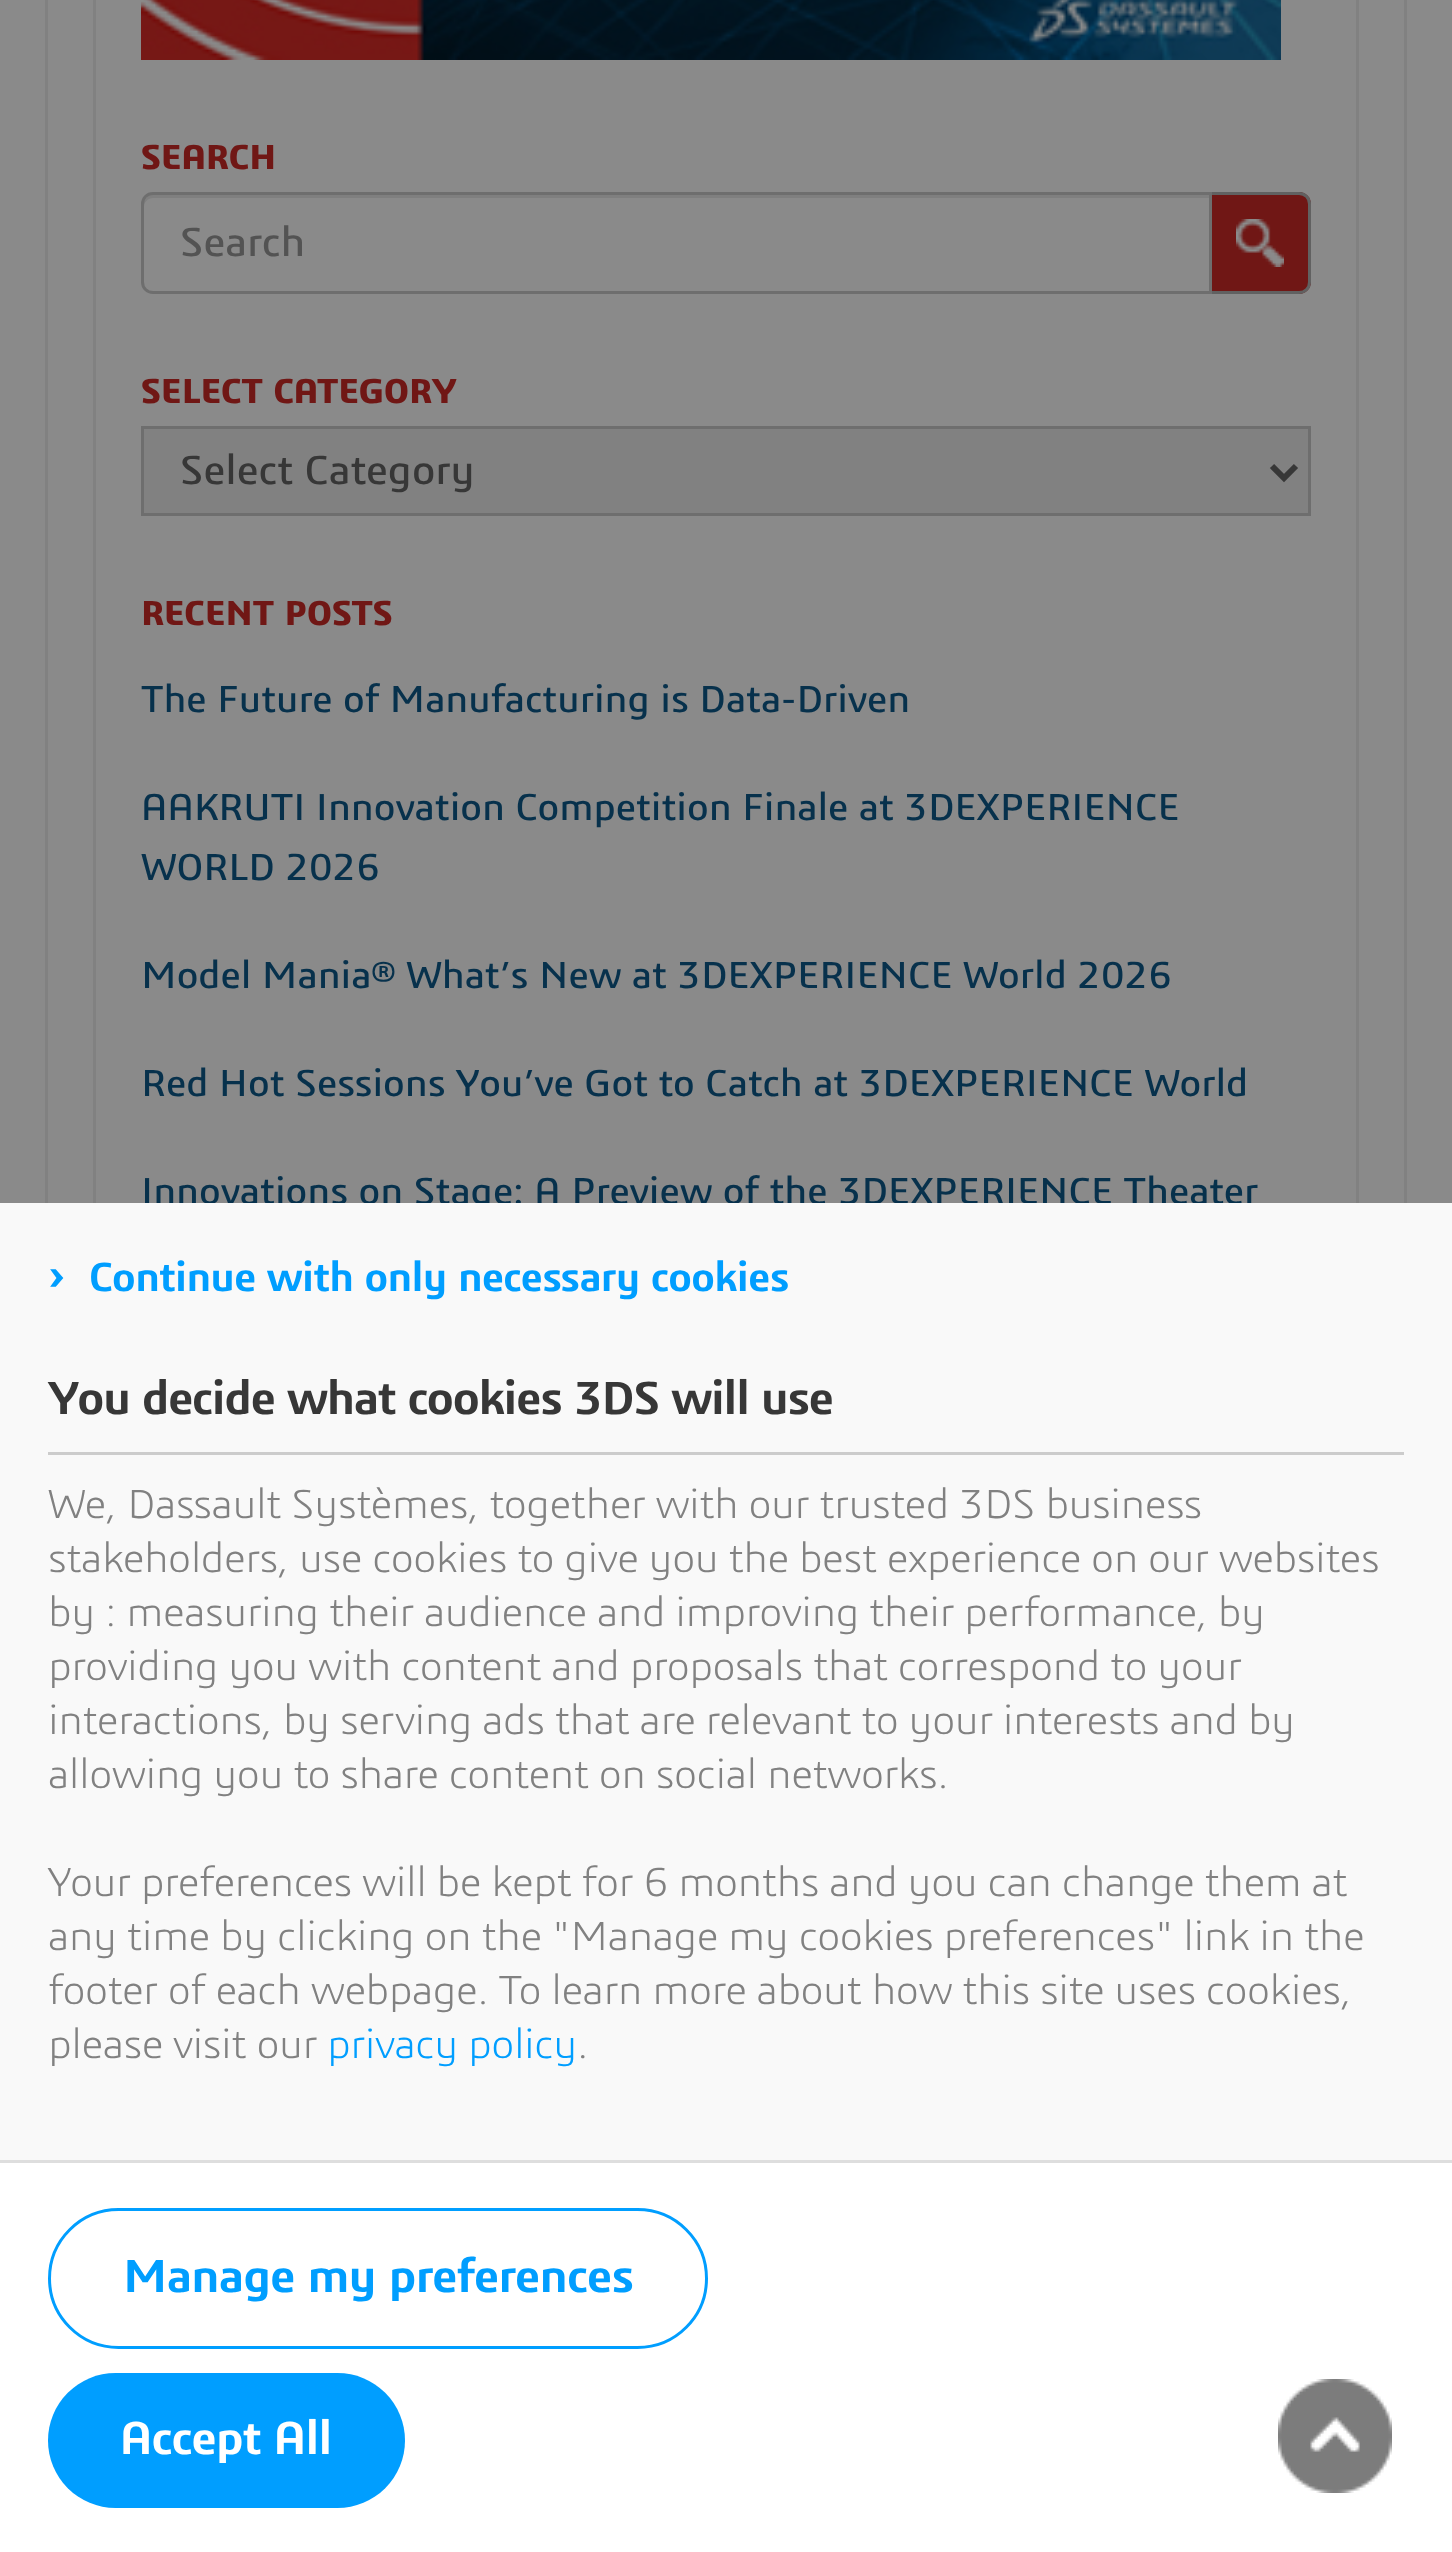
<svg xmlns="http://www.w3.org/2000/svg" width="1452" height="2552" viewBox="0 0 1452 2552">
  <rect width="100%" height="100%" fill="#8a8a8a"/>
  <path d="M1404 0h3v1203H1404z" fill="#818181"/>
  <path d="M45 0h3v1203H45z" fill="#818181"/>
  <path d="M94.5 -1.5h1263v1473H94.5z" fill="none" stroke="#818181" stroke-width="3"/>
  <image x="141" y="0" width="1140" height="60" href="img/1.png"/>
  <path d="M1209 192H1299C1305.5 192 1311 197.5 1311 204V282C1311 288.5 1305.5 294 1299 294H1209Z" fill="#701715"/>
  <image x="1236" y="219" width="48" height="48" href="img/2.png"/>
  <path d="M1210.5 193.5H1299C1305 193.5 1309.5 198 1309.5 204V282C1309.5 288 1305 292.5 1299 292.5H1210.5Z" fill="none" stroke="#616161" stroke-width="3"/>
  <path d="M153 192H1212V294H153C146.5 294 141 288.5 141 282V204C141 197.5 146.5 192 153 192Z" fill="#8a8a8a"/>
  <path d="M153 198H1209V195H153C148 195 144 199 144 204V207C144 202 148 198 153 198Z" fill="#7f7f7f"/>
  <path d="M153 193.5H1210.5V292.5H153C147 292.5 142.5 288 142.5 282V204C142.5 198 147 193.5 153 193.5Z" fill="none" stroke="#6e6e6e" stroke-width="3"/>
  <path d="M142.5 427.5h1167v87H142.5z" fill="#818181" stroke="#6e6e6e" stroke-width="3"/>
  <path d="M1272 466L1284 478L1296 466" fill="none" stroke="#373737" stroke-width="6"/>
  <path d="M0 2163h1452v389H0z" fill="#fff"/>
  <path d="M0 2160h1452v3H0z" fill="#dedede"/>
  <rect x="49.5" y="2209.5" width="657" height="138" rx="69" fill="none" stroke="#009eff" stroke-width="3"/>
  <rect x="48" y="2373" width="357" height="135" rx="67.5" fill="#009eff"/>
  <image x="1278" y="2379" width="114" height="114" href="img/3.png"/>
  <text x="141" y="169" font-family="'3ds'" font-size="36" font-weight="bold" fill="#701715">SEARCH</text>
  <text x="180" y="256" font-family="'3ds'" font-size="42" fill="#535353">Search</text>
  <text x="141" y="403" font-family="'3ds'" font-size="36" font-weight="bold" fill="#701715">SELECT CATEGORY</text>
  <text x="180" y="484" font-family="'3ds'" font-size="42" fill="#373737">Select Category</text>
  <text x="141" y="625" font-family="'3ds'" font-size="36" font-weight="bold" fill="#701715">RECENT POSTS</text>
  <g font-family="'3ds'" font-size="39" fill="#07314c">
    <text x="141" y="712">The Future of Manufacturing is Data-Driven</text>
    <text x="141" y="820">AAKRUTI Innovation Competition Finale at 3DEXPERIENCE</text>
    <text x="141" y="880">WORLD 2026</text>
    <text x="141" y="988">Model Mania® What’s New at 3DEXPERIENCE World 2026</text>
    <text x="141" y="1096">Red Hot Sessions You’ve Got to Catch at 3DEXPERIENCE World</text>
    <text x="141" y="1204">Innovations on Stage: A Preview of the 3DEXPERIENCE Theater</text>
  </g>
  <path d="M0 1203h1452v957H0z" fill="#f9f9f9"/>
  <path d="M48 1452h1356v3H48z" fill="#ccc"/>
  <text x="48" y="1291" font-family="'3ds'" font-size="48" font-weight="600" letter-spacing="-0.6" fill="#009eff">›</text>
  <text x="89" y="1291" font-family="'3ds'" font-size="42" font-weight="600" letter-spacing="-0.6" fill="#009eff">Continue with only necessary cookies</text>
  <text x="48" y="1414" font-family="'3ds'" font-size="48" font-weight="600" letter-spacing="-1.2" fill="#373737">You decide what cookies 3DS will use</text>
  <g font-family="'3ds'" font-size="42" font-weight="300" letter-spacing="-0.48" fill="#818181">
    <text x="48" y="1518">We, Dassault Systèmes, together with our trusted 3DS business</text>
    <text x="48" y="1572">stakeholders, use cookies to give you the best experience on our websites</text>
    <text x="48" y="1626">by : measuring their audience and improving their performance, by</text>
    <text x="48" y="1680">providing you with content and proposals that correspond to your</text>
    <text x="48" y="1734">interactions, by serving ads that are relevant to your interests and by</text>
    <text x="48" y="1788">allowing you to share content on social networks.</text>
    <text x="48" y="1896">Your preferences will be kept for 6 months and you can change them at</text>
    <text x="48" y="1950">any time by clicking on the "Manage my cookies preferences" link in the</text>
    <text x="48" y="2004">footer of each webpage. To learn more about how this site uses cookies,</text>
    <text x="48" y="2058">please visit our</text>
  </g>
  <text x="327" y="2058" font-family="'3ds'" font-size="42" font-weight="300" letter-spacing="-0.48" fill="#009eff">privacy policy</text>
  <text x="577" y="2058" font-family="'3ds'" font-size="42" font-weight="300" letter-spacing="-0.48" fill="#818181">.</text>
  <text x="123" y="2292" font-family="'3ds'" font-size="48" font-weight="600" letter-spacing="-0.6" fill="#009eff">Manage my preferences</text>
  <text x="120" y="2454" font-family="'3ds'" font-size="48" font-weight="600" letter-spacing="-0.6" fill="#fff">Accept All</text>
</svg>
